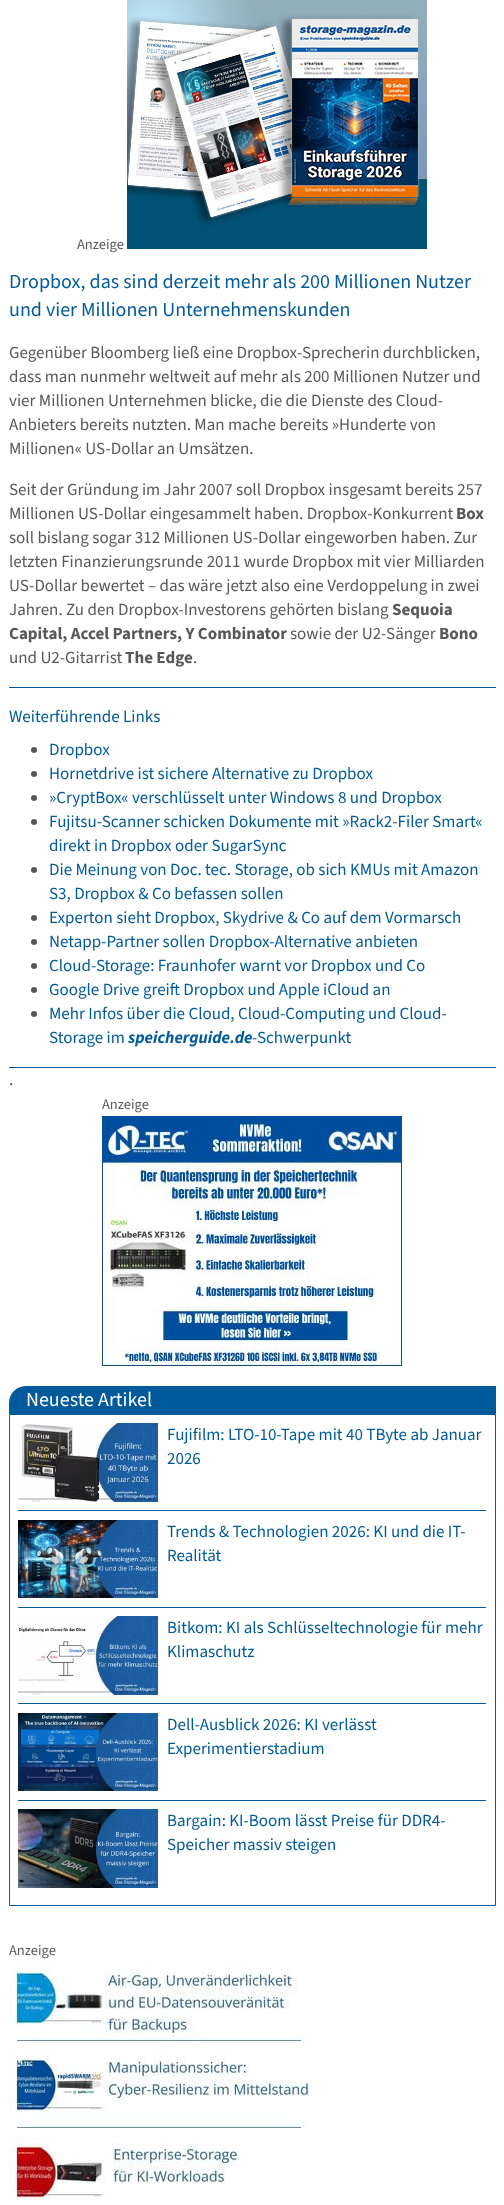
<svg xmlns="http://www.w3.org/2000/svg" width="504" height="2205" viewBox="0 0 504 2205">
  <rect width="100%" height="100%" fill="#fff"/>
  <image x="127" y="0" width="300" height="249" href="img/1.png"/>
  <path d="M9 687h487v1H9z" fill="#005a9b"/>
  <path d="M9 1067h487v1H9z" fill="#005a9b"/>
  <circle cx="34" cy="750" r="3" fill="#585858"/>
  <circle cx="34" cy="774" r="3" fill="#585858"/>
  <circle cx="34" cy="798" r="3" fill="#585858"/>
  <circle cx="34" cy="822" r="3" fill="#585858"/>
  <circle cx="34" cy="870" r="3" fill="#585858"/>
  <circle cx="34" cy="918" r="3" fill="#585858"/>
  <circle cx="34" cy="942" r="3" fill="#585858"/>
  <circle cx="34" cy="966" r="3" fill="#585858"/>
  <circle cx="34" cy="990" r="3" fill="#585858"/>
  <circle cx="34" cy="1014" r="3" fill="#585858"/>
  <image x="102" y="1116" width="300" height="250" href="img/2.png"/>
  <path d="M26 1386H496V1414H9V1403C9 1393.5 16.5 1386 26 1386Z" fill="#005a9b"/>
  <path d="M9.5 1414.5h486v491H9.5z" fill="none" stroke="#005a9b"/>
  <path d="M18 1510h468v1H18z" fill="#005a9b"/>
  <image x="18" y="1423" width="140" height="79" href="img/3.png"/>
  <path d="M18 1607h468v1H18z" fill="#005a9b"/>
  <image x="18" y="1520" width="140" height="78" href="img/4.png"/>
  <path d="M18 1703h468v1H18z" fill="#005a9b"/>
  <image x="18" y="1616" width="140" height="79" href="img/5.png"/>
  <path d="M18 1800h468v1H18z" fill="#005a9b"/>
  <image x="18" y="1713" width="140" height="78" href="img/6.png"/>
  <image x="18" y="1809" width="140" height="79" href="img/7.png"/>
  <image x="9" y="1961" width="296" height="80" href="img/8.png"/>
  <image x="9" y="2048" width="300" height="80" href="img/9.png"/>
  <image x="9" y="2135" width="232" height="64" href="img/10.png"/>
  <text x="77" y="249" font-family="'Source Sans 3'" font-size="14.5" font-weight="200" fill="#585858">Anzeige</text>
  <g font-family="'Source Sans 3'" font-size="20" font-weight="200" fill="#005a9b">
    <text x="9" y="288">Dropbox, das sind derzeit mehr als 200 Millionen Nutzer</text>
    <text x="9" y="316">und vier Millionen Unternehmenskunden</text>
  </g>
  <g font-family="'Source Sans 3'" font-size="17" font-weight="200" fill="#585858">
    <text x="9" y="358">Gegenüber Bloomberg ließ eine Dropbox-Sprecherin durchblicken,</text>
    <text x="9" y="382">dass man nunmehr weltweit auf mehr als 200 Millionen Nutzer und</text>
    <text x="9" y="406">vier Millionen Unternehmen blicke, die die Dienste des Cloud-</text>
    <text x="9" y="430">Anbieters bereits nutzten. Man mache bereits »Hunderte von</text>
    <text x="9" y="454">Millionen« US-Dollar an Umsätzen.</text>
    <text x="9" y="495">Seit der Gründung im Jahr 2007 soll Dropbox insgesamt bereits 257</text>
    <text x="9" y="519">Millionen US-Dollar eingesammelt haben. Dropbox-Konkurrent</text>
  </g>
  <text x="456" y="519" font-family="'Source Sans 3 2'" font-size="17" font-weight="200" fill="#585858">Box</text>
  <g font-family="'Source Sans 3'" font-size="17" font-weight="200" fill="#585858">
    <text x="9" y="543">soll bislang sogar 312 Millionen US-Dollar eingeworben haben. Zur</text>
    <text x="9" y="567">letzten Finanzierungsrunde 2011 wurde Dropbox mit vier Milliarden</text>
    <text x="9" y="591">US-Dollar bewertet – das wäre jetzt also eine Verdoppelung in zwei</text>
    <text x="9" y="615">Jahren. Zu den Dropbox-Investorens gehörten bislang</text>
  </g>
  <g font-family="'Source Sans 3 2'" font-size="17" font-weight="200" fill="#585858">
    <text x="392" y="615">Sequoia</text>
    <text x="9" y="639">Capital, Accel Partners, Y Combinator</text>
  </g>
  <text x="290" y="639" font-family="'Source Sans 3'" font-size="17" font-weight="200" fill="#585858">sowie der U2-Sänger</text>
  <text x="439" y="639" font-family="'Source Sans 3 2'" font-size="17" font-weight="200" fill="#585858">Bono</text>
  <text x="9" y="663" font-family="'Source Sans 3'" font-size="17" font-weight="200" fill="#585858">und U2-Gitarrist</text>
  <text x="125" y="663" font-family="'Source Sans 3 2'" font-size="17" font-weight="200" fill="#585858">The Edge</text>
  <text x="193" y="663" font-family="'Source Sans 3'" font-size="17" font-weight="200" fill="#585858">.</text>
  <g font-family="'Source Sans 3'" font-size="17" font-weight="200" fill="#005a9b">
    <text x="9" y="722">Weiterführende Links</text>
    <text x="49" y="755">Dropbox</text>
    <text x="49" y="779">Hornetdrive ist sichere Alternative zu Dropbox</text>
    <text x="49" y="803">»CryptBox« verschlüsselt unter Windows 8 und Dropbox</text>
    <text x="49" y="827">Fujitsu-Scanner schicken Dokumente mit »Rack2-Filer Smart«</text>
    <text x="49" y="851">direkt in Dropbox oder SugarSync</text>
    <text x="49" y="875">Die Meinung von Doc. tec. Storage, ob sich KMUs mit Amazon</text>
    <text x="49" y="899">S3, Dropbox &amp; Co befassen sollen</text>
    <text x="49" y="923">Experton sieht Dropbox, Skydrive &amp; Co auf dem Vormarsch</text>
    <text x="49" y="947">Netapp-Partner sollen Dropbox-Alternative anbieten</text>
    <text x="49" y="971">Cloud-Storage: Fraunhofer warnt vor Dropbox und Co</text>
    <text x="49" y="995">Google Drive greift Dropbox und Apple iCloud an</text>
    <text x="49" y="1019">Mehr Infos über die Cloud, Cloud-Computing und Cloud-</text>
    <text x="49" y="1043">Storage im</text>
  </g>
  <text x="128" y="1043" font-family="'Source Sans 3'" font-size="17" font-weight="200" font-style="italic" fill="#005a9b">speicherguide.de</text>
  <text x="252" y="1043" font-family="'Source Sans 3'" font-size="17" font-weight="200" fill="#005a9b">-Schwerpunkt</text>
  <text x="9" y="1085" font-family="'Source Sans 3'" font-size="17" font-weight="200" fill="#585858">.</text>
  <text x="102" y="1109" font-family="'Source Sans 3'" font-size="14.5" font-weight="200" fill="#585858">Anzeige</text>
  <text x="26" y="1406" font-family="'Source Sans 3'" font-size="20" font-weight="200" fill="#fff">Neueste Artikel</text>
  <g font-family="'Source Sans 3'" font-size="17" font-weight="200" fill="#005a9b">
    <text x="167" y="1440">Fujifilm: LTO-10-Tape mit 40 TByte ab Januar</text>
    <text x="167" y="1464">2026</text>
    <text x="167" y="1537">Trends &amp; Technologien 2026: KI und die IT-</text>
    <text x="167" y="1561">Realität</text>
    <text x="167" y="1633">Bitkom: KI als Schlüsseltechnologie für mehr</text>
    <text x="167" y="1657">Klimaschutz</text>
    <text x="167" y="1730">Dell-Ausblick 2026: KI verlässt</text>
    <text x="167" y="1754">Experimentierstadium</text>
    <text x="167" y="1826">Bargain: KI-Boom lässt Preise für DDR4-</text>
    <text x="167" y="1850">Speicher massiv steigen</text>
  </g>
  <text x="9" y="1955" font-family="'Source Sans 3'" font-size="14.5" font-weight="200" fill="#585858">Anzeige</text>
</svg>
